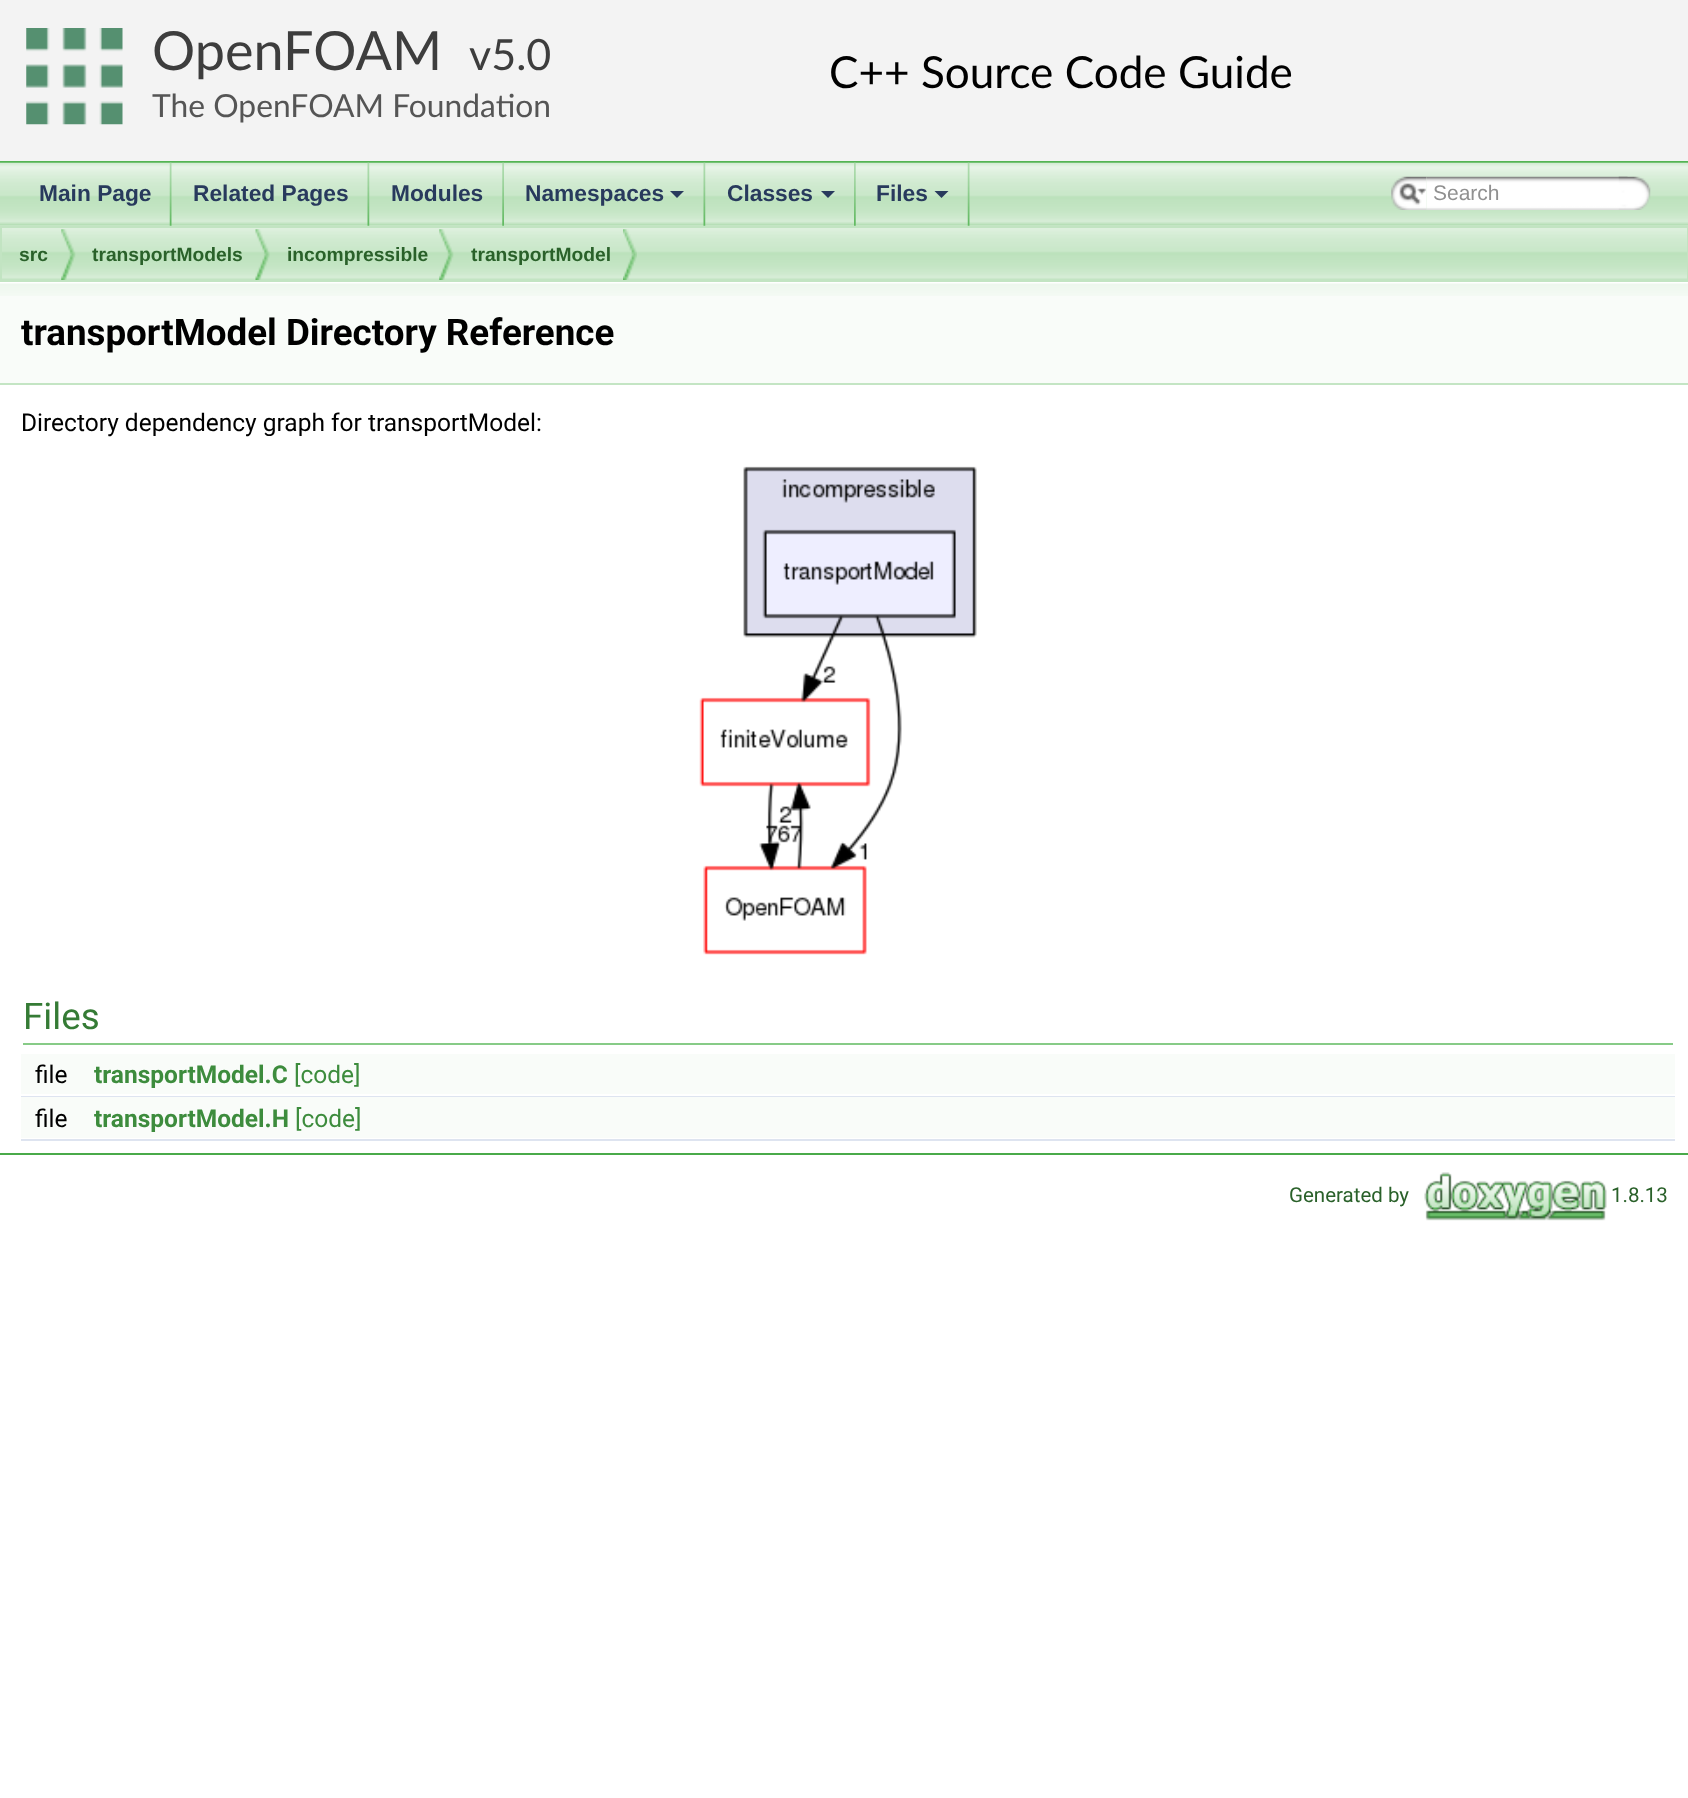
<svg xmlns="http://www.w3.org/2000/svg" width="1688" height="1798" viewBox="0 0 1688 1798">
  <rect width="100%" height="100%" fill="#fff"/>
  <path d="M0 0h1688v161H0z" fill="#f3f3f3"/>
  <path d="M0 161h1688v2H0z" fill="#53b453"/>
  <image x="26" y="28" width="97" height="97" href="img/1.png"/>
  <image x="0" y="225" width="1688" height="55" href="img/11.png"/>
  <image x="0" y="162" width="1688" height="64" href="img/2.png"/>
  <image x="169" y="162" width="3" height="64" href="img/3.png"/>
  <image x="367" y="162" width="3" height="64" href="img/4.png"/>
  <image x="502" y="162" width="2" height="64" href="img/5.png"/>
  <image x="703" y="162" width="3" height="64" href="img/4.png"/>
  <path d="M670 191H684L677 198Z" fill="#283a5d"/>
  <image x="854" y="162" width="2" height="64" href="img/6.png"/>
  <path d="M821 191H835L828 198Z" fill="#283a5d"/>
  <image x="967" y="162" width="3" height="64" href="img/3.png"/>
  <path d="M934.5 191H948.5L941.5 198Z" fill="#283a5d"/>
  <image x="1391" y="176" width="36" height="34" href="img/7.png"/>
  <image x="1399" y="183" width="28" height="22" href="img/8.png"/>
  <image x="1426" y="176" width="202" height="34" href="img/9.png"/>
  <image x="1618" y="176" width="33" height="34" href="img/10.png"/>
  <path d="M1 227h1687v54H1z" fill="none" stroke="#c2e4c2" stroke-width="2"/>
  <image x="61" y="229" width="15" height="51" href="img/12.png"/>
  <image x="255" y="229" width="15" height="51" href="img/13.png"/>
  <image x="439" y="229" width="15" height="51" href="img/12.png"/>
  <image x="623" y="229" width="14" height="51" href="img/14.png"/>
  <path d="M0 296h1688v87H0z" fill="#f9fcf9"/>
  <image x="0" y="282" width="1688" height="14" href="img/15.png"/>
  <path d="M0 383h1688v2H0z" fill="#c4e5c4"/>
  <image x="699" y="466" width="278" height="489" href="img/16.png"/>
  <path d="M23 1043h1650v2H23z" fill="#87cb87"/>
  <path d="M21 1054h1654v40H21z" fill="#f9fcf9"/>
  <path d="M21 1096h1654v1H21z" fill="#dee4f0"/>
  <path d="M21 1097h1654v41H21z" fill="#f9fcf9"/>
  <path d="M21 1139h1654v2H21z" fill="#dee4f0"/>
  <path d="M0 1153h1688v2H0z" fill="#4aaa4a"/>
  <image x="1424" y="1172" width="183" height="49" href="img/17.png"/>
  <text x="152" y="70" font-family="Lato" font-size="54" fill="#3d3d3d">OpenFOAM</text>
  <text x="469" y="70" font-family="Lato" font-size="43" fill="#3d3d3d">v5.0</text>
  <text x="152" y="117" font-family="Lato" font-size="31.8" fill="#555">The OpenFOAM Foundation</text>
  <text x="829" y="88" font-family="Lato" font-size="44.1" fill="#000">C++ Source Code Guide</text>
  <g font-family="Liberation Sans" font-size="22.75" font-weight="bold" fill="#283a5d">
    <text x="39" y="201">Main Page</text>
    <text x="193" y="201">Related Pages</text>
    <text x="391" y="201">Modules</text>
    <text x="525" y="201">Namespaces</text>
    <text x="727" y="201">Classes</text>
    <text x="876" y="201">Files</text>
  </g>
  <text x="1433" y="200" font-family="Liberation Sans" font-size="21" fill="#909090">Search</text>
  <g font-family="Liberation Sans" font-size="19.25" font-weight="bold" fill="#2a612a">
    <text x="19" y="261">src</text>
    <text x="92" y="261">transportModels</text>
    <text x="287" y="261">incompressible</text>
    <text x="471" y="261">transportModel</text>
  </g>
  <text x="21" y="345" font-family="Roboto" font-size="36.75" font-weight="bold" fill="#000">transportModel Directory Reference</text>
  <text x="21" y="431" font-family="Roboto" font-size="24.5" fill="#000">Directory dependency graph for transportModel:</text>
  <text x="23" y="1029" font-family="Roboto" font-size="36.75" fill="#357b35">Files</text>
  <text x="35" y="1083" font-family="Roboto" font-size="24.5" fill="#000">file</text>
  <text x="94" y="1083" font-family="Roboto" font-size="24.5" font-weight="bold" fill="#3d8c3d">transportModel.C</text>
  <text x="294" y="1083" font-family="Roboto" font-size="24.5" fill="#3d8c3d">[code]</text>
  <text x="35" y="1127" font-family="Roboto" font-size="24.5" fill="#000">file</text>
  <text x="94" y="1127" font-family="Roboto" font-size="24.5" font-weight="bold" fill="#3d8c3d">transportModel.H</text>
  <text x="295" y="1127" font-family="Roboto" font-size="24.5" fill="#3d8c3d">[code]</text>
  <g font-family="Roboto" font-size="20.5" fill="#2a612a">
    <text x="1289" y="1202">Generated by</text>
    <text x="1611" y="1202">1.8.13</text>
  </g>
</svg>
